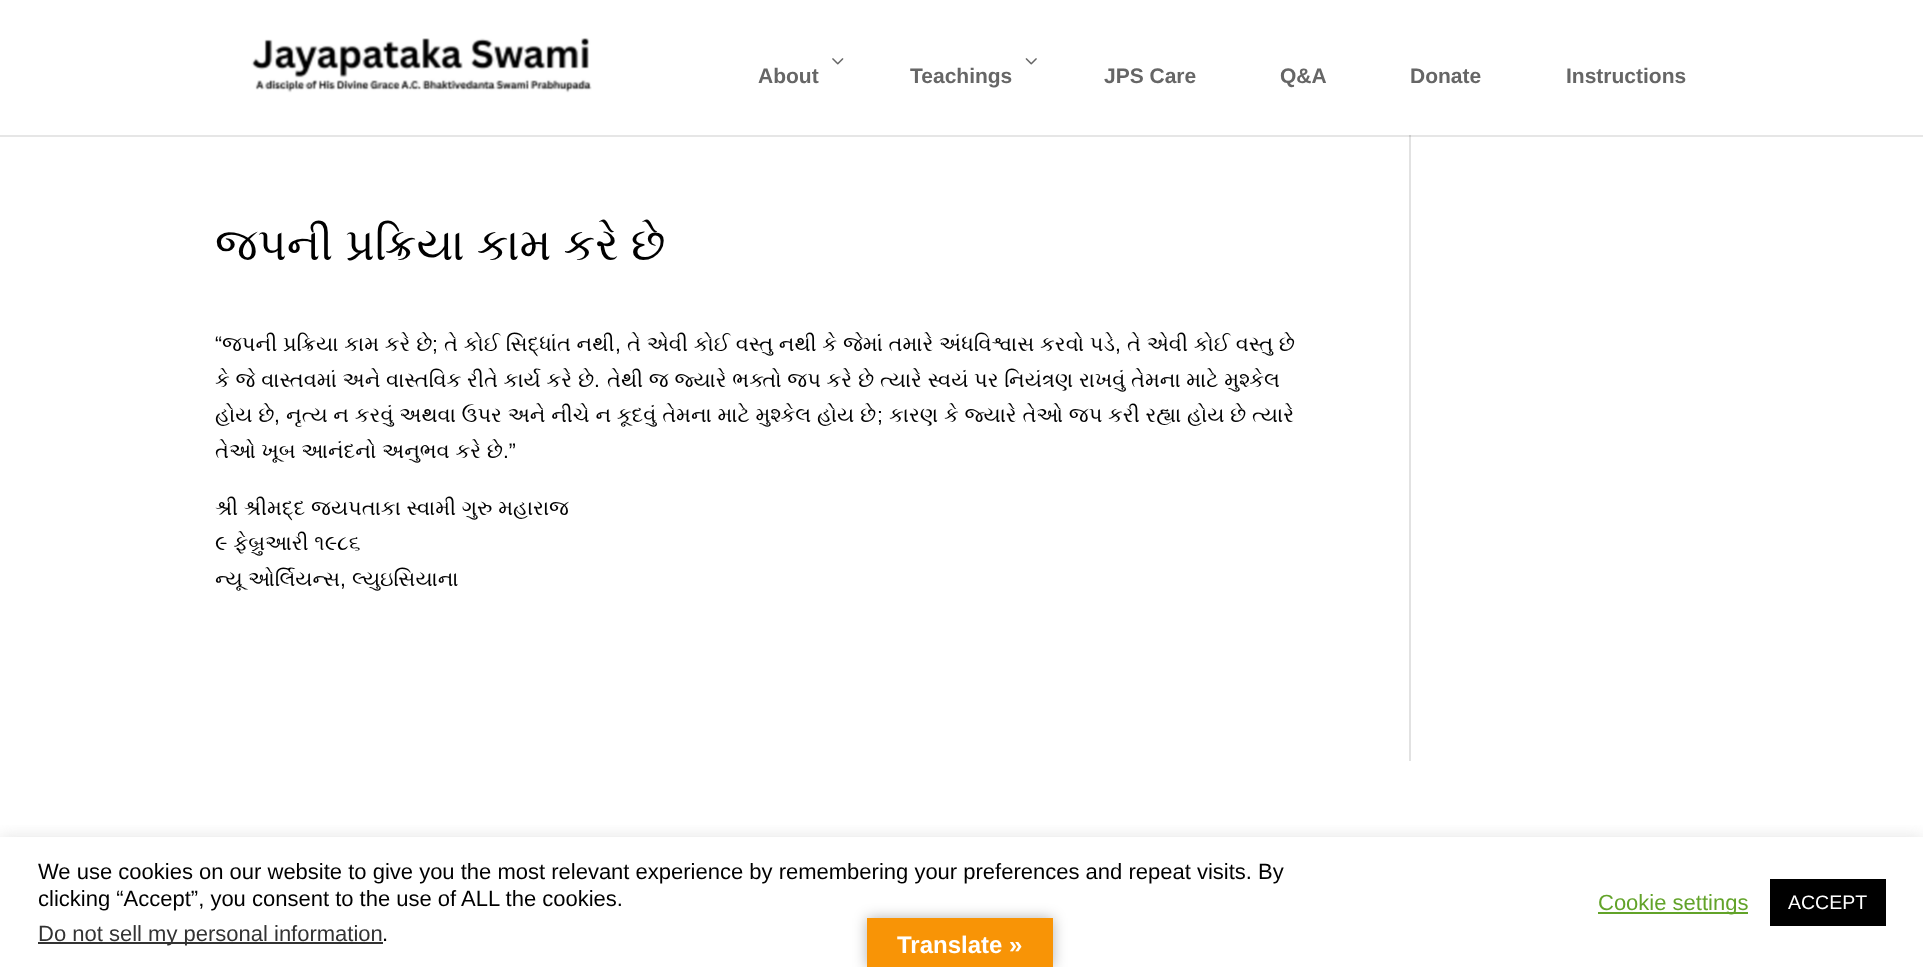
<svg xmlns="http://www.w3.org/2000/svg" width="1923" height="967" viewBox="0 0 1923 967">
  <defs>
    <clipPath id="clip1"><path d="M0 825h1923v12H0z"/></clipPath>
  </defs>
  <rect width="100%" height="100%" fill="#fff"/>
  <path d="M0 135h1923v2H0z" fill="#e6e6e6"/>
  <image x="251" y="37" width="341" height="56" href="img/1.png"/>
  <image x="832" y="58" width="12" height="7" href="img/2.png"/>
  <image x="1025" y="58" width="12" height="7" href="img/3.png"/>
  <path d="M1409 135h2v626H1409z" fill="#e2e2e2"/>
  <path d="M1409 135h2v2H1409z" fill="#cbcbcb"/>
  <g clip-path="url(#clip1)">
    <path d="M0 836h1923v130H0z" fill="#acabab4d" filter="blur(7.5px)"/>
  </g>
  <path d="M38 942h345v2H38z" fill="#333"/>
  <path d="M1598 912h150v2H1598z" fill="#62a329"/>
  <path d="M1770 879h116v47H1770z" fill="#000"/>
  <path d="M867 918h186v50H867z" fill="#0000004d" filter="blur(7px)"/>
  <path d="M867 918h186v49H867z" fill="#f89406"/>
  <g font-family="Liberation Sans" font-size="21" font-weight="bold" fill="#666">
    <text x="758" y="83">About</text>
    <text x="910" y="83">Teachings</text>
    <text x="1104" y="83">JPS Care</text>
    <text x="1280" y="83">Q&amp;A</text>
    <text x="1410" y="83">Donate</text>
    <text x="1566" y="83">Instructions</text>
  </g>
  <text x="215" y="260" word-spacing="1" font-family="FreeSerif" font-size="45" fill="#000">જપની પ્રક્રિયા કામ કરે છે</text>
  <text x="215" y="351" font-family="Liberation Sans" font-size="21" fill="#000">“</text>
  <text x="222" y="351" word-spacing="0.5" font-family="FreeSerif" font-size="21" fill="#000">જપની પ્રક્રિયા કામ કરે છે</text>
  <text x="432" y="351" font-family="Liberation Sans" font-size="21" fill="#000">;</text>
  <text x="444" y="351" word-spacing="0.5" font-family="FreeSerif" font-size="21" fill="#000">તે કોઈ સિદ્ધાંત નથી</text>
  <text x="615" y="351" font-family="Liberation Sans" font-size="21" fill="#000">,</text>
  <text x="627" y="351" word-spacing="0.5" font-family="FreeSerif" font-size="21" fill="#000">તે એવી કોઈ વસ્તુ નથી કે જેમાં તમારે અંધવિશ્વાસ કરવો પડે</text>
  <text x="1115" y="351" font-family="Liberation Sans" font-size="21" fill="#000">,</text>
  <g font-family="FreeSerif" font-size="21" fill="#000">
    <text x="1127" y="351" word-spacing="0.5">તે એવી કોઈ વસ્તુ છે</text>
    <text x="215" y="387" word-spacing="0.5">કે જે વાસ્તવમાં અને વાસ્તવિક રીતે કાર્ય કરે છે</text>
  </g>
  <text x="594" y="387" font-family="Liberation Sans" font-size="21" fill="#000">.</text>
  <g font-family="FreeSerif" font-size="21" fill="#000">
    <text x="607" y="387" word-spacing="0.5">તેથી જ જ્યારે ભક્તો જપ કરે છે ત્યારે સ્વયં પર નિયંત્રણ રાખવું તેમના માટે મુશ્કેલ</text>
    <text x="215" y="422" word-spacing="0.5">હોય છે</text>
  </g>
  <text x="274" y="422" font-family="Liberation Sans" font-size="21" fill="#000">,</text>
  <text x="286" y="422" word-spacing="0.5" font-family="FreeSerif" font-size="21" fill="#000">નૃત્ય ન કરવું અથવા ઉપર અને નીચે ન કૂદવું તેમના માટે મુશ્કેલ હોય છે</text>
  <text x="877" y="422" font-family="Liberation Sans" font-size="21" fill="#000">;</text>
  <g font-family="FreeSerif" font-size="21" fill="#000">
    <text x="889" y="422" word-spacing="0.5">કારણ કે જ્યારે તેઓ જપ કરી રહ્યા હોય છે ત્યારે</text>
    <text x="215" y="458" word-spacing="0.5">તેઓ ખૂબ આનંદનો અનુભવ કરે છે</text>
  </g>
  <text x="503" y="458" font-family="Liberation Sans" font-size="21" fill="#000">.”</text>
  <g font-family="FreeSerif" font-size="21" fill="#000">
    <text x="215" y="515" word-spacing="0.5">શ્રી શ્રીમદ્દ જયપતાકા સ્વામી ગુરુ મહારાજ</text>
    <text x="215" y="550" word-spacing="0.5">૯ ફેબ્રુઆરી ૧૯૮૬</text>
    <text x="215" y="586">ન્યૂ ઓર્લિયન્સ</text>
  </g>
  <text x="340" y="586" font-family="Liberation Sans" font-size="21" fill="#000">,</text>
  <text x="352" y="586" font-family="FreeSerif" font-size="21" fill="#000">લ્યુઇસિયાના</text>
  <g font-family="Liberation Sans" font-size="22" fill="#000">
    <text x="38" y="879">We use cookies on our website to give you the most relevant experience by remembering your preferences and repeat visits. By</text>
    <text x="38" y="906">clicking “Accept”, you consent to the use of ALL the cookies.</text>
  </g>
  <text x="38" y="941" font-family="Liberation Sans" font-size="22" fill="#333">Do not sell my personal information</text>
  <text x="382" y="941" font-family="Liberation Sans" font-size="22" fill="#000">.</text>
  <text x="1598" y="910" font-family="Liberation Sans" font-size="22" fill="#62a329">Cookie settings</text>
  <text x="1788" y="909" font-family="Liberation Sans" font-size="19.5" fill="#fff">ACCEPT</text>
  <text x="897" y="953" font-family="Liberation Sans" font-size="24" font-weight="bold" fill="#fff">Translate »</text>
</svg>
